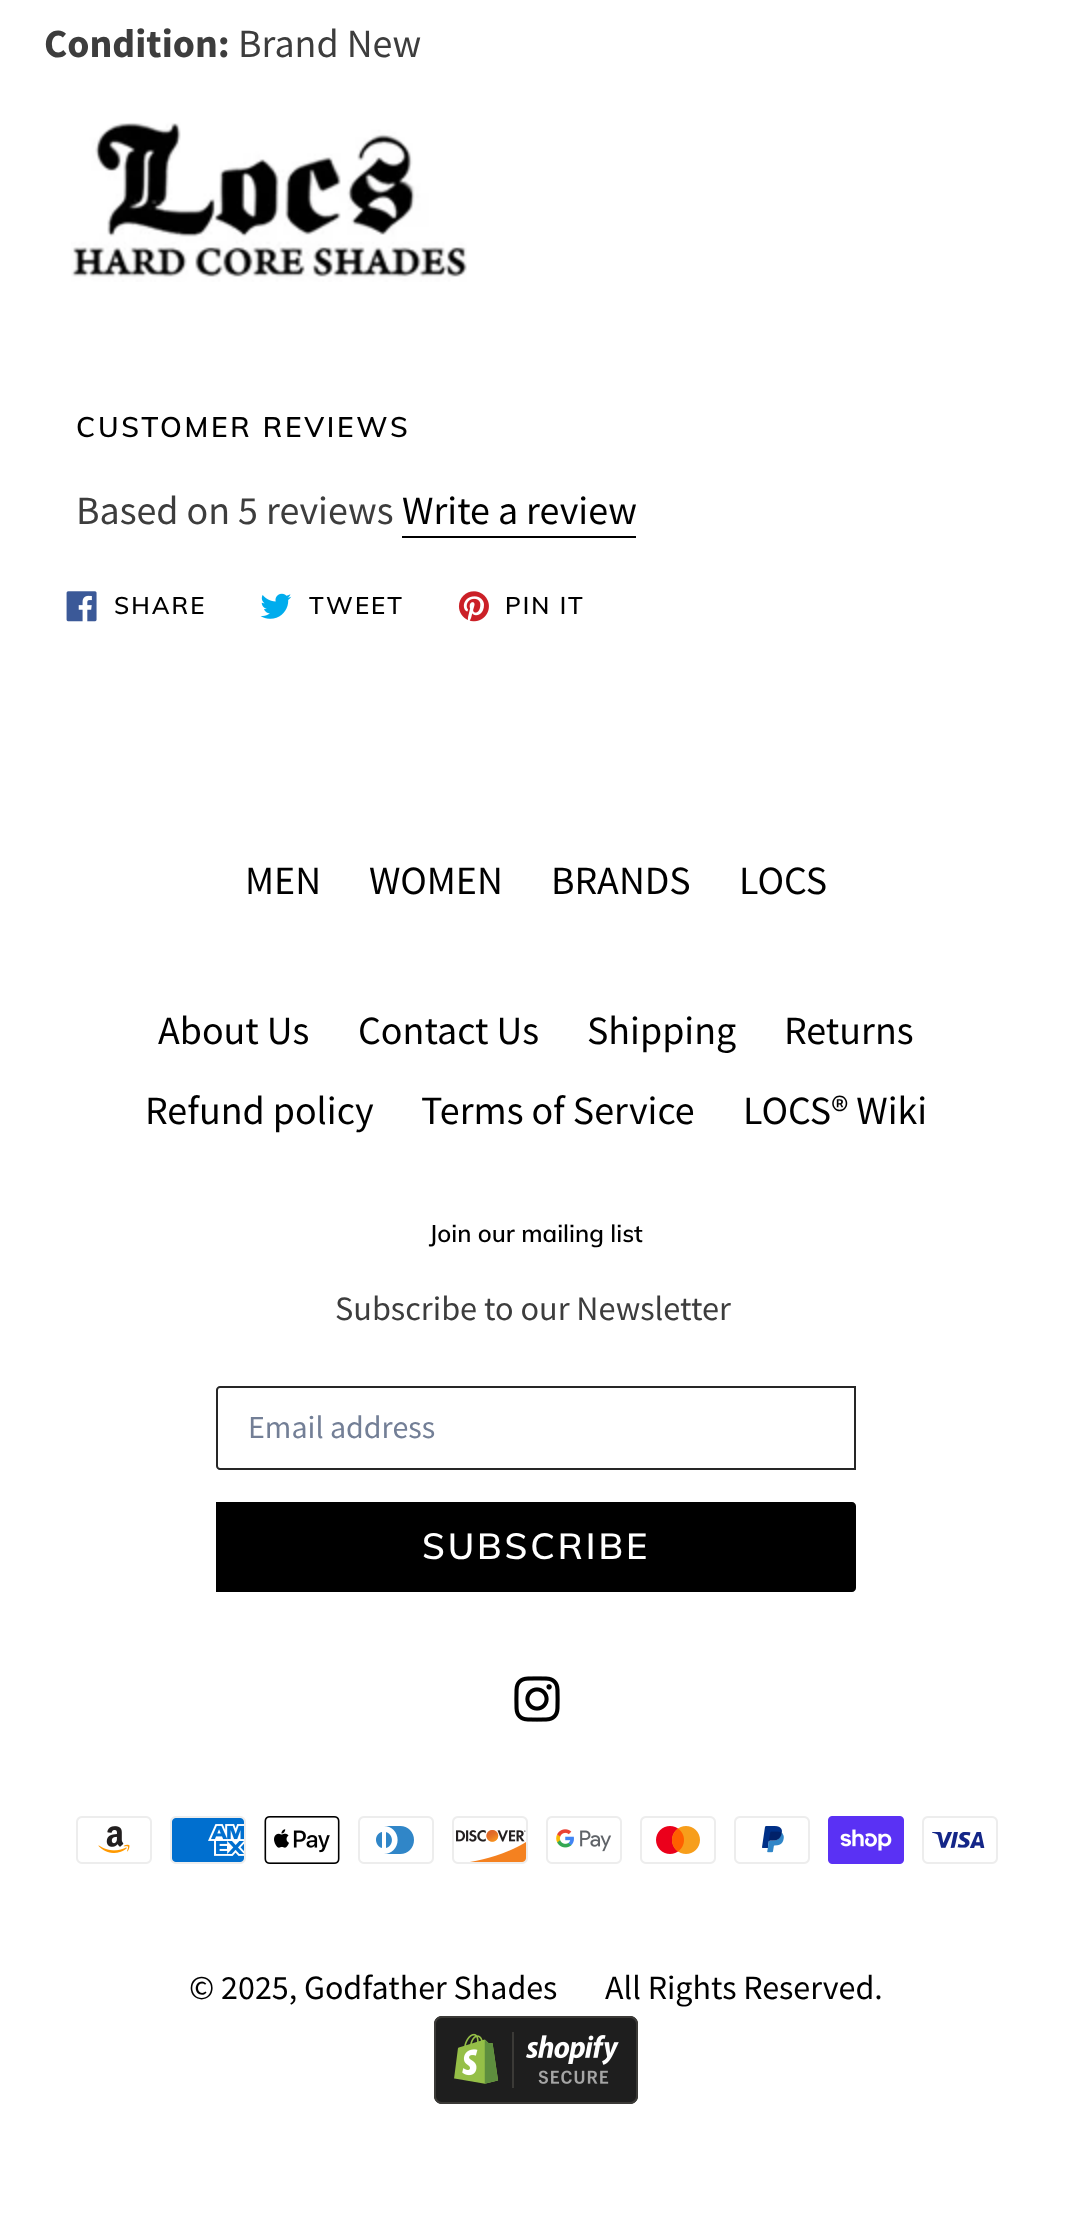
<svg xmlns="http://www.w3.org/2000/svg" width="1072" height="2229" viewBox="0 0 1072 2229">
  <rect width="100%" height="100%" fill="#fff"/>
  <image x="71" y="122" width="396" height="160" href="img/1.png"/>
  <path d="M402 536h234v2H402z" fill="#000"/>
  <image x="66" y="591" width="31" height="31" href="img/2.png"/>
  <image x="260" y="593" width="32" height="26" href="img/3.png"/>
  <image x="458" y="591" width="31" height="31" href="img/4.png"/>
  <path d="M220 1387H855V1469H220C218.5 1469 217 1467.5 217 1466V1390C217 1388.5 218.5 1387 220 1387Z" fill="none" stroke="#262626" stroke-width="2"/>
  <path d="M216 1502H852C854 1502 856 1504 856 1506V1588C856 1590 854 1592 852 1592H216Z" fill="#000"/>
  <image x="514" y="1676" width="46" height="46" href="img/5.png"/>
  <image x="76" y="1816" width="76" height="48" href="img/6.png"/>
  <image x="170" y="1816" width="76" height="48" href="img/7.png"/>
  <image x="264" y="1816" width="76" height="48" href="img/8.png"/>
  <image x="358" y="1816" width="76" height="48" href="img/9.png"/>
  <image x="452" y="1816" width="76" height="48" href="img/10.png"/>
  <image x="546" y="1816" width="76" height="48" href="img/11.png"/>
  <image x="640" y="1816" width="76" height="48" href="img/12.png"/>
  <image x="734" y="1816" width="76" height="48" href="img/13.png"/>
  <image x="828" y="1816" width="76" height="48" href="img/14.png"/>
  <image x="922" y="1816" width="76" height="48" href="img/15.png"/>
  <image x="434" y="2016" width="204" height="88" href="img/16.png"/>
  <text x="44" y="57" font-family="Source Sans Pro" font-size="40" font-weight="bold" fill="#3d3d3d">Condition:</text>
  <text x="238" y="57" font-family="Source Sans Pro" font-size="40" fill="#3d3d3d">Brand New</text>
  <text x="76" y="437" font-family="Muli" font-size="28" font-weight="600" letter-spacing="2.75" fill="#000">CUSTOMER REVIEWS</text>
  <text x="76" y="524" font-family="Source Sans Pro" font-size="40" fill="#3d3d3d">Based on 5 reviews</text>
  <text x="402" y="524" font-family="Source Sans Pro" font-size="40" fill="#000">Write a review</text>
  <g font-family="Muli" font-size="24" font-weight="600" letter-spacing="2" fill="#000">
    <text x="114" y="614">SHARE</text>
    <text x="309" y="614">TWEET</text>
    <text x="505" y="614">PIN IT</text>
  </g>
  <g font-family="Source Sans Pro" font-size="40" fill="#000">
    <text x="245" y="894">MEN</text>
    <text x="369" y="894">WOMEN</text>
    <text x="551" y="894">BRANDS</text>
    <text x="739" y="894">LOCS</text>
    <text x="158" y="1044">About Us</text>
    <text x="358" y="1044">Contact Us</text>
    <text x="587" y="1044">Shipping</text>
    <text x="784" y="1044">Returns</text>
    <text x="145" y="1124">Refund policy</text>
    <text x="421" y="1124">Terms of Service</text>
    <text x="743" y="1124">LOCS® Wiki</text>
  </g>
  <text x="429" y="1242" font-family="Muli" font-size="24" font-weight="600" fill="#000">Join our mailing list</text>
  <text x="335" y="1320" font-family="Source Sans Pro" font-size="34.25" fill="#3d3d3d">Subscribe to our Newsletter</text>
  <text x="248" y="1438" font-family="Source Sans Pro" font-size="32" fill="#737f96">Email address</text>
  <text x="422" y="1559" font-family="Muli" font-size="36" font-weight="600" letter-spacing="2.9" fill="#fff">SUBSCRIBE</text>
  <g font-family="Source Sans Pro" font-size="34" fill="#000">
    <text x="189" y="1999">© 2025, Godfather Shades</text>
    <text x="605" y="1999">All Rights Reserved.</text>
  </g>
</svg>
